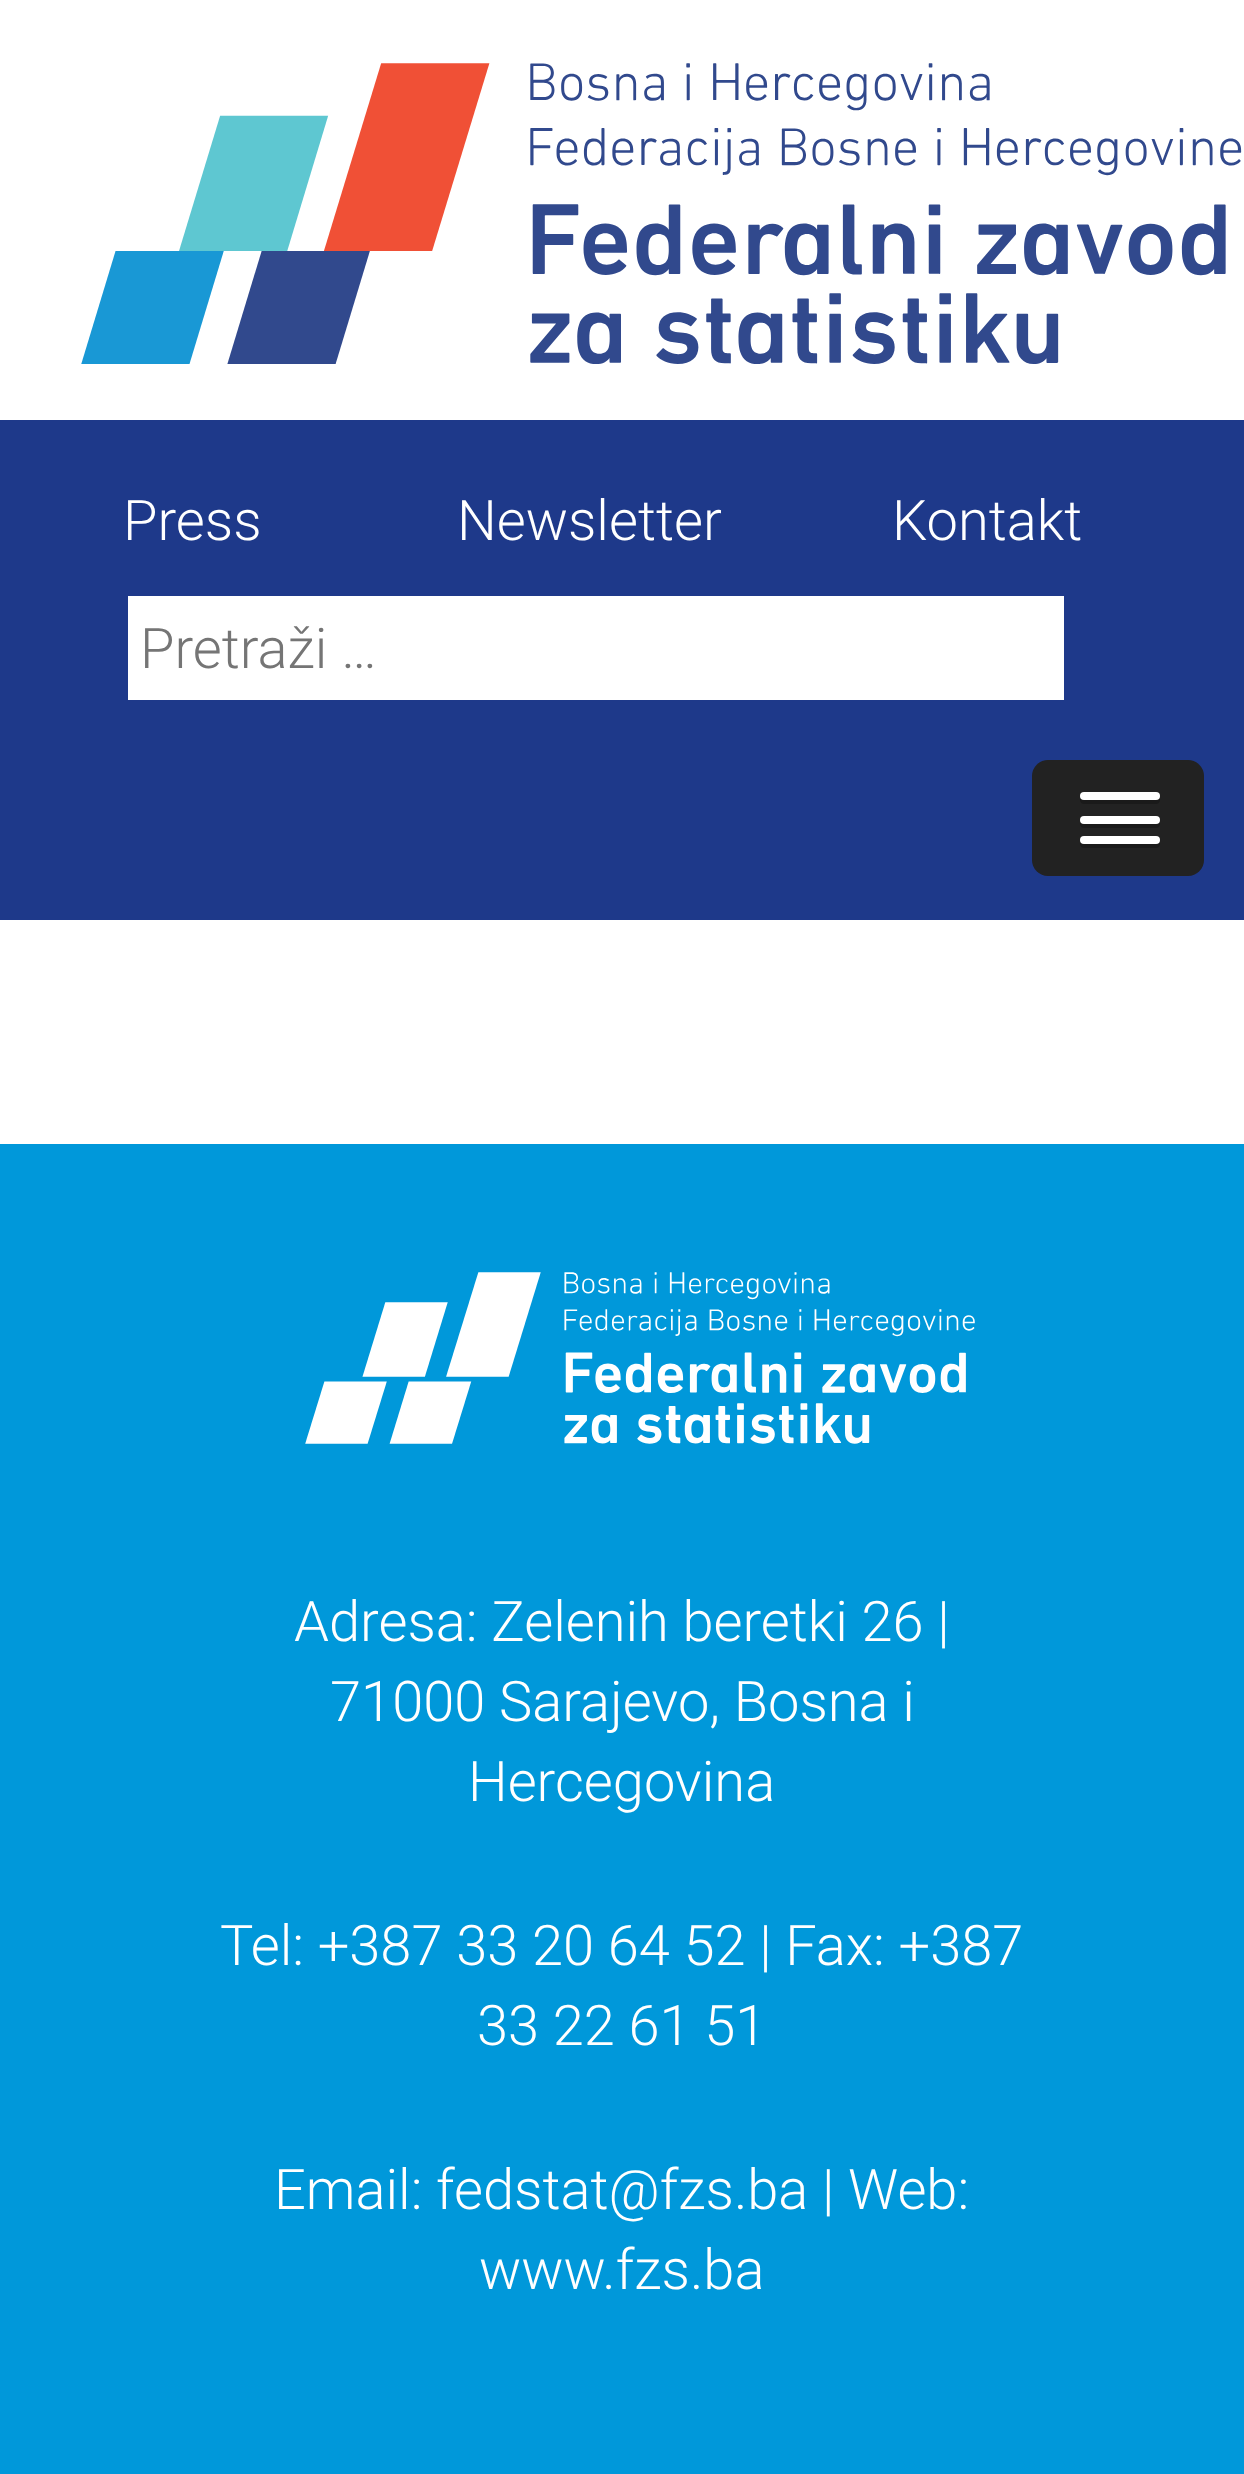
<svg xmlns="http://www.w3.org/2000/svg" width="1244" height="2474" viewBox="0 0 1244 2474">
  <rect width="100%" height="100%" fill="#fff"/>
  <path d="M0 420h1244v500H0z" fill="#1e398a"/>
  <rect x="1032" y="760" width="172" height="116" rx="16" fill="#222"/>
  <path d="M1081 798L1080 800C1080 802 1082 804 1084 804H1156C1158 804 1160 802 1160 800L1159 798C1159 799 1157 800 1156 800H1084C1083 800 1081 799 1081 798Z" fill="#1a1a1a"/>
  <rect x="1080" y="792" width="80" height="8" rx="4" fill="#fff"/>
  <path d="M1081 822L1080 824C1080 826 1082 828 1084 828H1156C1158 828 1160 826 1160 824L1159 822C1159 823 1157 824 1156 824H1084C1083 824 1081 823 1081 822Z" fill="#1a1a1a"/>
  <rect x="1080" y="816" width="80" height="8" rx="4" fill="#fff"/>
  <path d="M1081 842L1080 844C1080 846 1082 848 1084 848H1156C1158 848 1160 846 1160 844L1159 842C1159 843 1157 844 1156 844H1084C1083 844 1081 843 1081 842Z" fill="#1a1a1a"/>
  <rect x="1080" y="836" width="80" height="8" rx="4" fill="#fff"/>
  <image x="81" y="63" width="1161" height="301" href="img/1.png"/>
  <path d="M128 596h936v104H128z" fill="#fff"/>
  <path d="M0 1144h1244v1330H0z" fill="#0098da"/>
  <image x="305" y="1272" width="670" height="172" href="img/2.png"/>
  <g font-family="Roboto" font-size="56" font-weight="300" fill="#fff">
    <text x="123" y="540">Press</text>
    <text x="457" y="540">Newsletter</text>
    <text x="892" y="540">Kontakt</text>
  </g>
  <text x="140" y="668" font-family="Roboto" font-size="56" font-weight="300" fill="#757575">Pretraži …</text>
  <g font-family="Roboto" font-size="56" font-weight="300" fill="#fff">
    <text x="294" y="1641">Adresa: Zelenih beretki 26 |</text>
    <text x="330" y="1721">71000 Sarajevo, Bosna i</text>
    <text x="468" y="1801">Hercegovina</text>
    <text x="220" y="1965">Tel: +387 33 20 64 52 | Fax: +387</text>
    <text x="477" y="2045">33 22 61 51</text>
    <text x="274" y="2209">Email: fedstat@fzs.ba | Web:</text>
    <text x="479" y="2289">www.fzs.ba</text>
  </g>
</svg>
